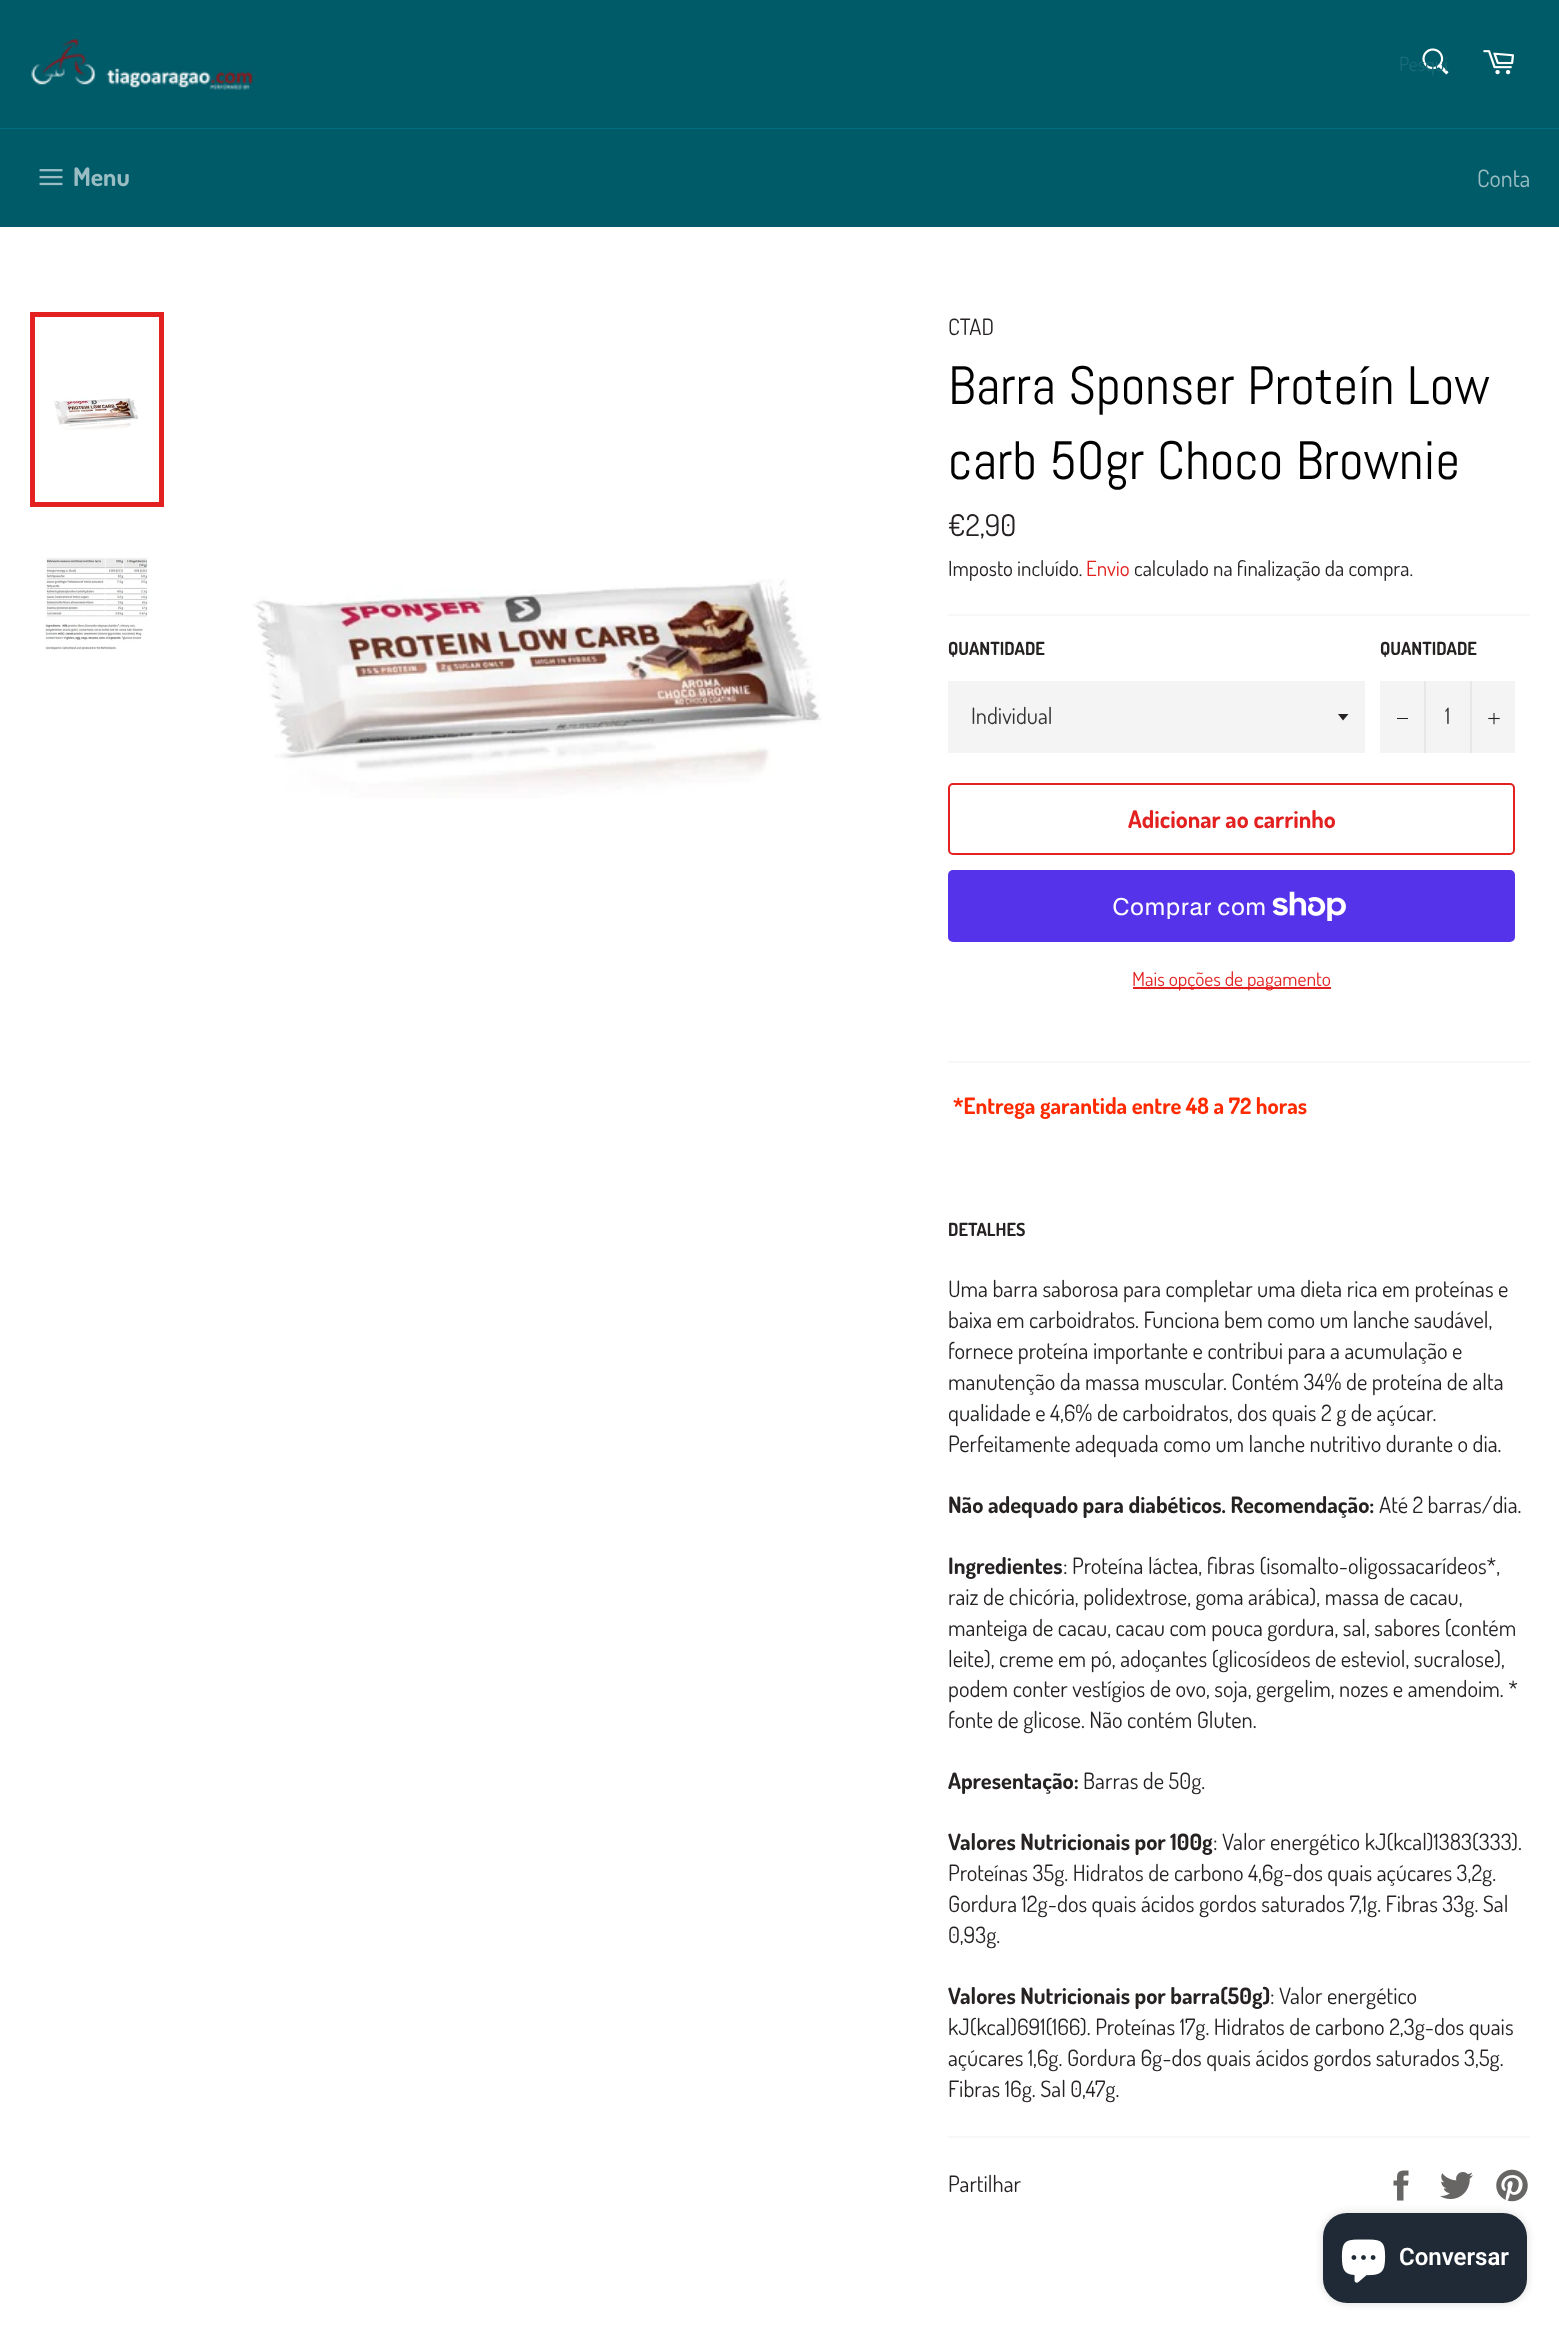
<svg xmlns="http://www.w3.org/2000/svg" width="1559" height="2334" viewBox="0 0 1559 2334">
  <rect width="100%" height="100%" fill="#005b69"/>
  <image x="31" y="38" width="222" height="52" href="img/1.png"/>
  <image x="1422" y="48" width="27" height="27" href="img/2.png"/>
  <image x="1483" y="50" width="31" height="25" href="img/3.png"/>
  <path d="M0 128h1559v1H0z" fill="#007183"/>
  <image x="39" y="169" width="24" height="17" href="img/4.png"/>
  <path d="M0 227h1559v2107H0z" fill="#fff"/>
  <image x="53" y="398" width="85" height="32" href="img/5.png"/>
  <path d="M32.5 314.5h129v190H32.5z" fill="none" stroke="#e22120" stroke-width="5"/>
  <image x="45" y="557" width="104" height="93" href="img/6.png"/>
  <image x="252" y="579" width="570" height="219" href="img/7.png"/>
  <path d="M948 614h582v2H948z" fill="#f7f7f7"/>
  <path d="M948 681h417v72H948z" fill="#f4f4f4"/>
  <path d="M1338 714L1343 720.5L1348.5 714Z" fill="#262222"/>
  <path d="M1380 681h135v72H1380z" fill="#f4f4f4"/>
  <path d="M1424 681h2v72H1424z" fill="#e7e7e7"/>
  <path d="M1397 718h11v1H1397z" fill="#262222"/>
  <path d="M1470 681h2v72H1470z" fill="#e7e7e7"/>
  <image x="1488" y="713" width="12" height="12" href="img/8.png"/>
  <rect x="949" y="784" width="565" height="70" rx="4" fill="none" stroke="#e22120" stroke-width="2"/>
  <rect x="948" y="870" width="567" height="72" rx="5" fill="#5433eb"/>
  <image x="1272" y="891" width="74" height="30" href="img/9.png"/>
  <path d="M1133 987h198v2H1133z" fill="#e22120"/>
  <path d="M948 1061h582v2H948z" fill="#f7f7f7"/>
  <path d="M948 2136h582v2H948z" fill="#f7f7f7"/>
  <image x="1393" y="2170" width="16" height="31" href="img/10.png"/>
  <image x="1440" y="2172" width="33" height="27" href="img/11.png"/>
  <image x="1496" y="2169" width="32" height="33" href="img/12.png"/>
  <rect x="1323" y="2213" width="204" height="90" rx="24" fill="#00000026" filter="blur(4px)"/>
  <rect x="1323" y="2213" width="204" height="90" rx="24" fill="#202a36"/>
  <image x="1341" y="2239" width="45" height="44" href="img/13.png"/>
  <text x="1399" y="71" font-family="Dosis" font-size="19.5" fill="#196b78">Pesqui</text>
  <text x="73" y="186" font-family="Dosis" font-size="25.5" font-weight="bold" fill="#99bdc3">Menu</text>
  <text x="1477" y="187" font-family="Dosis" font-size="24" fill="#99bdc3">Conta</text>
  <text x="948" y="335" font-family="Dosis" font-size="22.5" fill="#262222">CTAD</text>
  <g font-family="Abel" font-size="54" fill="#000">
    <text x="948" y="404">Barra Sponser Proteín Low</text>
    <text x="948" y="479">carb 50gr Choco Brownie</text>
  </g>
  <text x="948" y="536" font-family="Dosis" font-size="30" fill="#262222">€2,90</text>
  <text x="948" y="576" font-family="Dosis" font-size="21" fill="#262222">Imposto incluído.</text>
  <text x="1086" y="576" font-family="Dosis" font-size="21" fill="#e22120">Envio</text>
  <text x="1134" y="576" font-family="Dosis" font-size="21" fill="#262222">calculado na finalização da compra.</text>
  <text x="948" y="655" font-family="Dosis" font-size="18" font-weight="bold" fill="#262222">QUANTIDADE</text>
  <text x="971" y="724" font-family="Dosis" font-size="22.5" fill="#333">Individual</text>
  <text x="1380" y="655" font-family="Dosis" font-size="18" font-weight="bold" fill="#262222">QUANTIDADE</text>
  <text x="1445" y="724" font-family="Dosis" font-size="22.5" fill="#333">1</text>
  <text x="1128" y="828" font-family="Dosis" font-size="24" font-weight="bold" fill="#e22120">Adicionar ao carrinho</text>
  <text x="1112" y="915" font-family="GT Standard" font-size="24" fill="#fff">Comprar com</text>
  <text x="1132" y="986" font-family="Dosis" font-size="19.5" fill="#e22120">Mais opções de pagamento</text>
  <text x="953" y="1114" font-family="Dosis" font-size="22.5" font-weight="bold" fill="#ff2a00">*Entrega garantida entre 48 a 72 horas</text>
  <text x="948" y="1236" font-family="Dosis" font-size="18" font-weight="bold" fill="#262222">DETALHES</text>
  <g font-family="Dosis" font-size="22.5" fill="#262222">
    <text x="948" y="1297">Uma barra saborosa para completar uma dieta rica em proteínas e</text>
    <text x="948" y="1328">baixa em carboidratos. Funciona bem como um lanche saudável,</text>
    <text x="948" y="1359">fornece proteína importante e contribui para a acumulação e</text>
    <text x="948" y="1390">manutenção da massa muscular. Contém 34% de proteína de alta</text>
    <text x="948" y="1421">qualidade e 4,6% de carboidratos, dos quais 2 g de açúcar.</text>
    <text x="948" y="1452">Perfeitamente adequada como um lanche nutritivo durante o dia.</text>
  </g>
  <text x="948" y="1513" font-family="Dosis" font-size="22.5" font-weight="bold" fill="#262222">Não adequado para diabéticos. Recomendação:</text>
  <text x="1379" y="1513" font-family="Dosis" font-size="22.5" fill="#262222">Até 2 barras/dia.</text>
  <text x="948" y="1574" font-family="Dosis" font-size="22.5" font-weight="bold" fill="#262222">Ingredientes</text>
  <g font-family="Dosis" font-size="22.5" fill="#262222">
    <text x="1063" y="1574">: Proteína láctea, fibras (isomalto-oligossacarídeos*,</text>
    <text x="948" y="1605">raiz de chicória, polidextrose, goma arábica), massa de cacau,</text>
    <text x="948" y="1636">manteiga de cacau, cacau com pouca gordura, sal, sabores (contém</text>
    <text x="948" y="1667">leite), creme em pó, adoçantes (glicosídeos de esteviol, sucralose),</text>
    <text x="948" y="1697">podem conter vestígios de ovo, soja, gergelim, nozes e amendoim. *</text>
    <text x="948" y="1728">fonte de glicose. Não contém Gluten.</text>
  </g>
  <text x="948" y="1789" font-family="Dosis" font-size="22.5" font-weight="bold" fill="#262222">Apresentação:</text>
  <text x="1083" y="1789" font-family="Dosis" font-size="22.5" fill="#262222">Barras de 50g.</text>
  <text x="948" y="1850" font-family="Dosis" font-size="22.5" font-weight="bold" fill="#262222">Valores Nutricionais por 100g</text>
  <g font-family="Dosis" font-size="22.5" fill="#262222">
    <text x="1213" y="1850">: Valor energético kJ(kcal)1383(333).</text>
    <text x="948" y="1881">Proteínas 35g. Hidratos de carbono 4,6g-dos quais açúcares 3,2g.</text>
    <text x="948" y="1912">Gordura 12g-dos quais ácidos gordos saturados 7,1g. Fibras 33g. Sal</text>
    <text x="948" y="1943">0,93g.</text>
  </g>
  <text x="948" y="2004" font-family="Dosis" font-size="22.5" font-weight="bold" fill="#262222">Valores Nutricionais por barra(50g)</text>
  <g font-family="Dosis" font-size="22.5" fill="#262222">
    <text x="1270" y="2004">: Valor energético</text>
    <text x="948" y="2035">kJ(kcal)691(166). Proteínas 17g. Hidratos de carbono 2,3g-dos quais</text>
    <text x="948" y="2066">açúcares 1,6g. Gordura 6g-dos quais ácidos gordos saturados 3,5g.</text>
    <text x="948" y="2097">Fibras 16g. Sal 0,47g.</text>
    <text x="948" y="2192">Partilhar</text>
  </g>
  <text x="1399" y="2265" font-family="Roboto" font-size="24" font-weight="600" fill="#fff">Conversar</text>
</svg>
